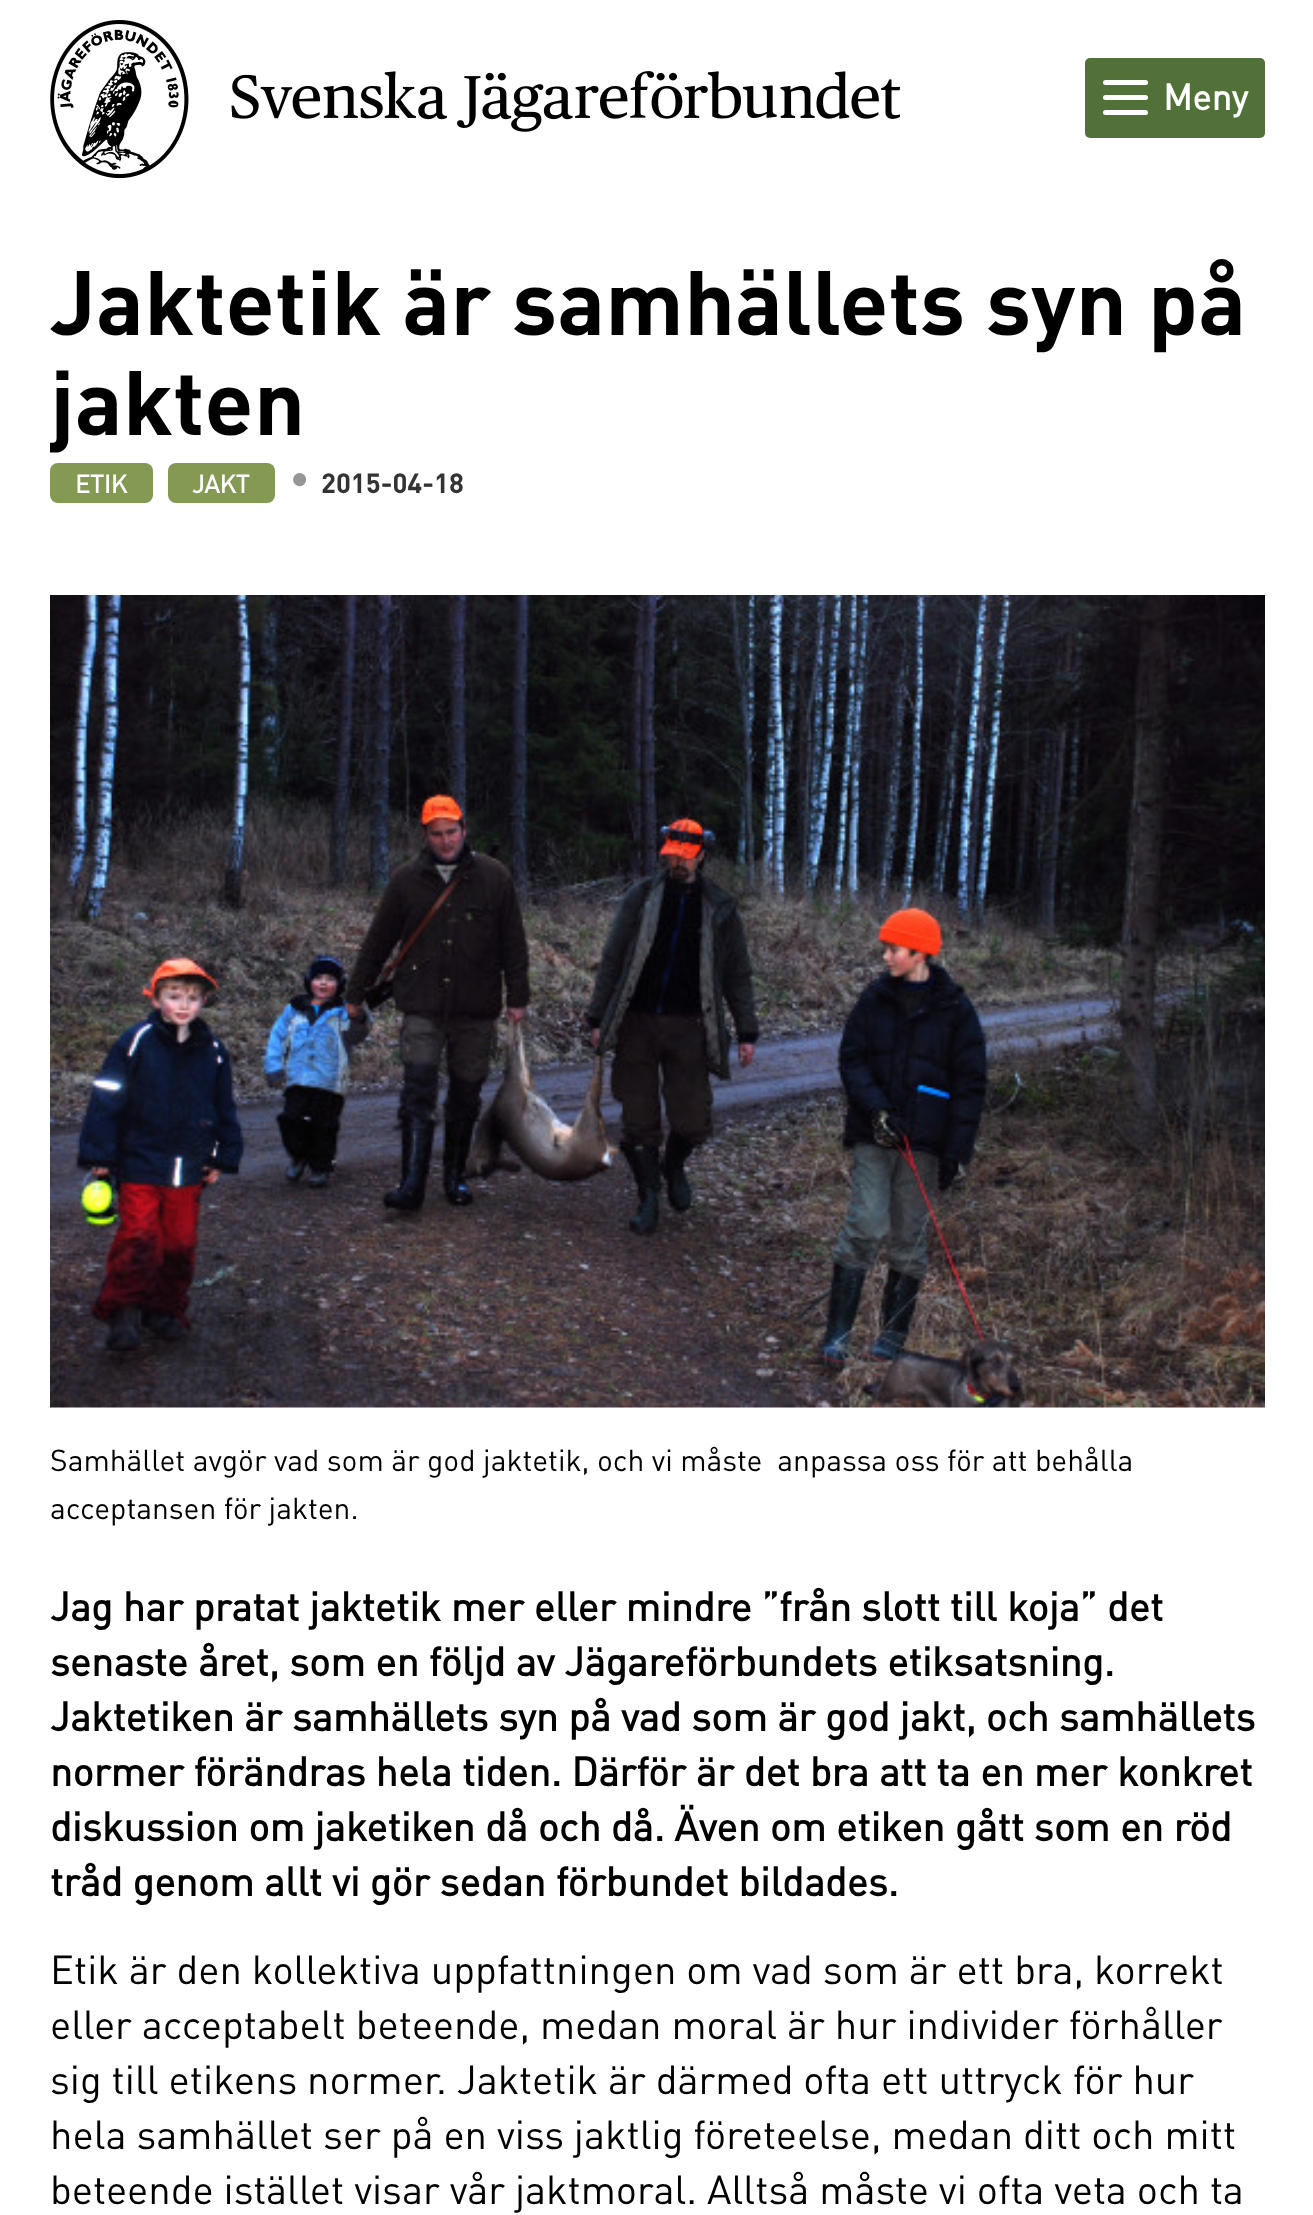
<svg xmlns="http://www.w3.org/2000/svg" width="1313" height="2215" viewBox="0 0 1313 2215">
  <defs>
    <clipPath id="clip1"><path d="M50 250h1215v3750H50z"/></clipPath>
  </defs>
  <rect width="100%" height="100%" fill="#fff"/>
  <image x="50" y="20" width="850" height="159" href="img/1.png"/>
  <rect x="1085" y="58" width="180" height="80" rx="5" fill="#527138"/>
  <rect x="1103" y="95" width="45" height="5" rx="2.5" fill="#fff"/>
  <rect x="1103" y="80" width="45" height="5" rx="2.5" fill="#fff"/>
  <rect x="1103" y="110" width="45" height="5" rx="2.5" fill="#fff"/>
  <rect x="50" y="463" width="103" height="40" rx="8" fill="#849951"/>
  <rect x="168" y="463" width="107" height="40" rx="8" fill="#849951"/>
  <image x="50" y="595" width="1215" height="813" href="img/2.png"/>
  <text x="1163" y="110" font-family="'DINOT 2'" font-size="36" font-weight="bold" fill="#fff">Meny</text>
  <text x="50" y="335" font-family="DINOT" font-size="90" font-weight="bold" fill="#000">Jaktetik är samhällets syn på</text>
  <g clip-path="url(#clip1)">
    <text x="50" y="435" font-family="DINOT" font-size="90" font-weight="bold" fill="#000">jakten</text>
  </g>
  <g font-family="'DINOT 2'" font-size="25" font-weight="bold" fill="#fff">
    <text x="75" y="493">ETIK</text>
    <text x="192" y="493">JAKT</text>
  </g>
  <text x="289" y="493" font-family="DINOT" font-size="40" fill="#969696">•</text>
  <text x="321" y="493" font-family="DINOT" font-size="27.5" font-weight="bold" fill="#333">2015-04-18</text>
  <g font-family="DINOT" font-size="30" fill="#000">
    <text x="50" y="1471" xml:space="preserve">Samhället avgör vad som är god jaktetik, och vi måste  anpassa oss för att behålla</text>
    <text x="50" y="1519">acceptansen för jakten.</text>
  </g>
  <g font-family="'DINOT 2'" font-size="40" font-weight="bold" fill="#000">
    <text x="50" y="1621">Jag har pratat jaktetik mer eller mindre ”från slott till koja” det</text>
    <text x="50" y="1676">senaste året, som en följd av Jägareförbundets etiksatsning.</text>
    <text x="50" y="1731">Jaktetiken är samhällets syn på vad som är god jakt, och samhällets</text>
    <text x="50" y="1786">normer förändras hela tiden. Därför är det bra att ta en mer konkret</text>
    <text x="50" y="1841">diskussion om jaketiken då och då. Även om etiken gått som en röd</text>
    <text x="50" y="1896">tråd genom allt vi gör sedan förbundet bildades.</text>
  </g>
  <g font-family="DINOT" font-size="40" fill="#000">
    <text x="50" y="1984">Etik är den kollektiva uppfattningen om vad som är ett bra, korrekt</text>
    <text x="50" y="2039">eller acceptabelt beteende, medan moral är hur individer förhåller</text>
    <text x="50" y="2094">sig till etikens normer. Jaktetik är därmed ofta ett uttryck för hur</text>
    <text x="50" y="2149">hela samhället ser på en viss jaktlig företeelse, medan ditt och mitt</text>
    <text x="50" y="2204">beteende istället visar vår jaktmoral. Alltså måste vi ofta veta och ta</text>
  </g>
</svg>
